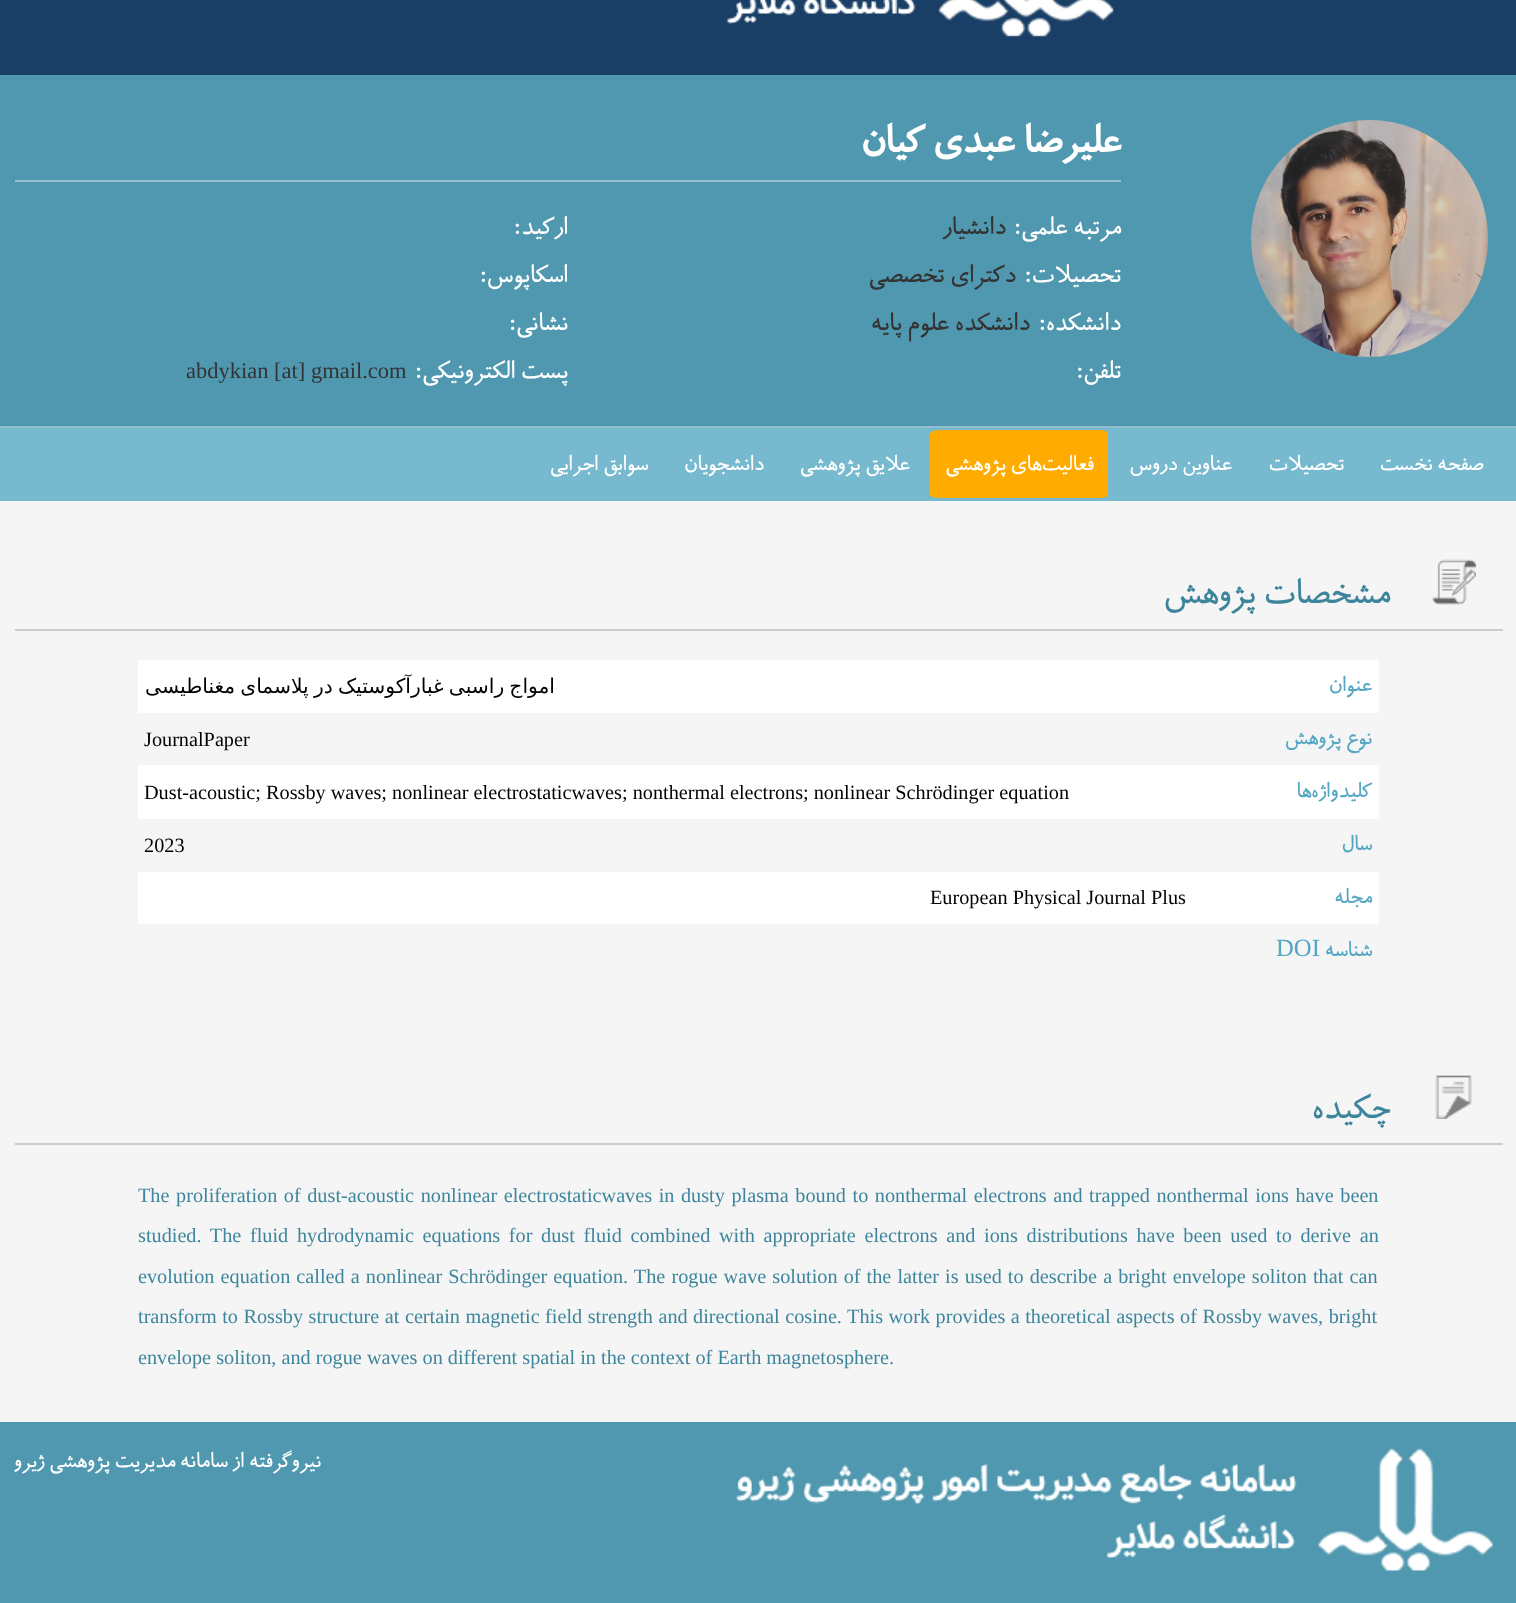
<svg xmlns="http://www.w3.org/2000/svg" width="1516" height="1603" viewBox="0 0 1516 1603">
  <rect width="100%" height="100%" fill="#193f66"/>
  <image x="727" y="0" width="387" height="37" href="img/1.png"/>
  <path d="M0 75h1516v351H0z" fill="#4f98b0"/>
  <path d="M15 180h1106v2H15z" fill="#92bfce"/>
  <image x="1251" y="120" width="237" height="237" href="img/2.png"/>
  <path d="M0 428h1516v73H0z" fill="#77b9cf"/>
  <path d="M0 426h1516v2H0z" fill="#92bfce"/>
  <path d="M939 430H1100C1105 430 1108 432 1108 434V495C1108 496 1105 498 1100 498H939C934 498 930 496 930 495V434C930 432 934 430 939 430Z" fill="#ffab00"/>
  <path d="M0 501h1516v921H0z" fill="#f5f5f5"/>
  <path d="M15 629h1488v2H15z" fill="#ccc"/>
  <image x="1432" y="559" width="44" height="46" href="img/3.png"/>
  <path d="M138 660h1241v53H138z" fill="#fff"/>
  <path d="M138 765h1241v54H138z" fill="#fff"/>
  <path d="M138 872h1241v52H138z" fill="#fff"/>
  <path d="M15 1143h1488v2H15z" fill="#ccc"/>
  <image x="1435" y="1075" width="37" height="44" href="img/4.png"/>
  <path d="M0 1422h1516v181H0z" fill="#4f98b0"/>
  <image x="736" y="1448" width="757" height="123" href="img/5.png"/>
  <text x="1121" y="152" font-family="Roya" font-size="45" font-weight="bold" direction="rtl" fill="#fff">علیرضا عبدی کیان</text>
  <text x="568" y="234" font-family="Roya" font-size="29.25" direction="rtl" fill="#fff">ارکید:</text>
  <text x="1006" y="234" font-family="Roya" font-size="29.25" direction="rtl" fill="#333">دانشیار</text>
  <g font-family="Roya" font-size="29.25" direction="rtl" fill="#fff">
    <text x="1121" y="234">مرتبه علمی:</text>
    <text x="568" y="282">اسکاپوس:</text>
  </g>
  <text x="1016" y="282" font-family="Roya" font-size="29.25" direction="rtl" fill="#333">دکترای تخصصی</text>
  <g font-family="Roya" font-size="29.25" direction="rtl" fill="#fff">
    <text x="1121" y="282">تحصیلات:</text>
    <text x="568" y="330">نشانی:</text>
  </g>
  <text x="1030" y="330" font-family="Roya" font-size="29.25" direction="rtl" fill="#333">دانشکده علوم پایه</text>
  <text x="1121" y="330" font-family="Roya" font-size="29.25" direction="rtl" fill="#fff">دانشکده:</text>
  <text x="186" y="378" font-family="Liberation Serif" font-size="22.5" fill="#333">abdykian [at] gmail.com</text>
  <g font-family="Roya" font-size="29.25" direction="rtl" fill="#fff">
    <text x="568" y="378">پست الکترونیکی:</text>
    <text x="1121" y="378">تلفن:</text>
  </g>
  <g font-family="Roya" font-size="24.75" direction="rtl" fill="#fff">
    <text x="648" y="470">سوابق اجرایی</text>
    <text x="764" y="470">دانشجویان</text>
    <text x="910" y="470">علایق پژوهشی</text>
    <text x="1094" y="470">فعالیت‌های پژوهشی</text>
    <text x="1232" y="470">عناوین دروس</text>
    <text x="1344" y="470">تحصیلات</text>
    <text x="1484" y="470">صفحه نخست</text>
  </g>
  <text x="1390" y="603" font-family="Roya" font-size="40.5" direction="rtl" fill="#3d859c">مشخصات پژوهش</text>
  <text x="555" y="693" word-spacing="-1.25" font-family="DejaVu Sans" font-size="20.25" direction="rtl" fill="#000">امواج راسبی غبارآکوستیک در پلاسمای مغناطیسی</text>
  <text x="1372" y="691" font-family="Roya" font-size="24.75" direction="rtl" fill="#54a6c2">عنوان</text>
  <text x="144" y="746" font-family="Liberation Serif" font-size="20.25" fill="#000">JournalPaper</text>
  <text x="1372" y="744" font-family="Roya" font-size="24.75" direction="rtl" fill="#54a6c2">نوع پژوهش</text>
  <text x="144" y="799" font-family="Liberation Serif" font-size="20.25" fill="#000">Dust-acoustic; Rossby waves; nonlinear electrostaticwaves; nonthermal electrons; nonlinear Schrödinger equation</text>
  <text x="1372" y="797" font-family="Roya" font-size="24.75" direction="rtl" fill="#54a6c2">کلیدواژه‌ها</text>
  <text x="144" y="852" font-family="Liberation Serif" font-size="20.25" fill="#000">2023</text>
  <text x="1372" y="850" font-family="Roya" font-size="24.75" direction="rtl" fill="#54a6c2">سال</text>
  <text x="930" y="904" font-family="Liberation Serif" font-size="20.25" fill="#000">European Physical Journal Plus</text>
  <text x="1372" y="903" font-family="Roya" font-size="24.75" direction="rtl" fill="#54a6c2">مجله</text>
  <text x="1276" y="956" font-family="Liberation Serif" font-size="24.75" fill="#54a6c2">DOI</text>
  <text x="1372" y="956" font-family="Roya" font-size="24.75" direction="rtl" fill="#54a6c2">شناسه</text>
  <text x="1390" y="1118" font-family="Roya" font-size="40.5" direction="rtl" fill="#3d859c">چکیده</text>
  <g font-family="Liberation Serif" font-size="20.25" fill="#3d859c">
    <text x="138" y="1202" word-spacing="1.5">The proliferation of dust-acoustic nonlinear electrostaticwaves in dusty plasma bound to nonthermal electrons and trapped nonthermal ions have been</text>
    <text x="138" y="1242" word-spacing="3.6">studied. The fluid hydrodynamic equations for dust fluid combined with appropriate electrons and ions distributions have been used to derive an</text>
    <text x="138" y="1283" word-spacing="1">evolution equation called a nonlinear Schrödinger equation. The rogue wave solution of the latter is used to describe a bright envelope soliton that can</text>
    <text x="138" y="1323" word-spacing="0.4">transform to Rossby structure at certain magnetic field strength and directional cosine. This work provides a theoretical aspects of Rossby waves, bright</text>
    <text x="138" y="1364">envelope soliton, and rogue waves on different spatial in the context of Earth magnetosphere.</text>
  </g>
  <text x="321" y="1467" font-family="Roya" font-size="24.75" direction="rtl" fill="#fff">نیروگرفته از سامانه مدیریت پژوهشی ژیرو</text>
</svg>
